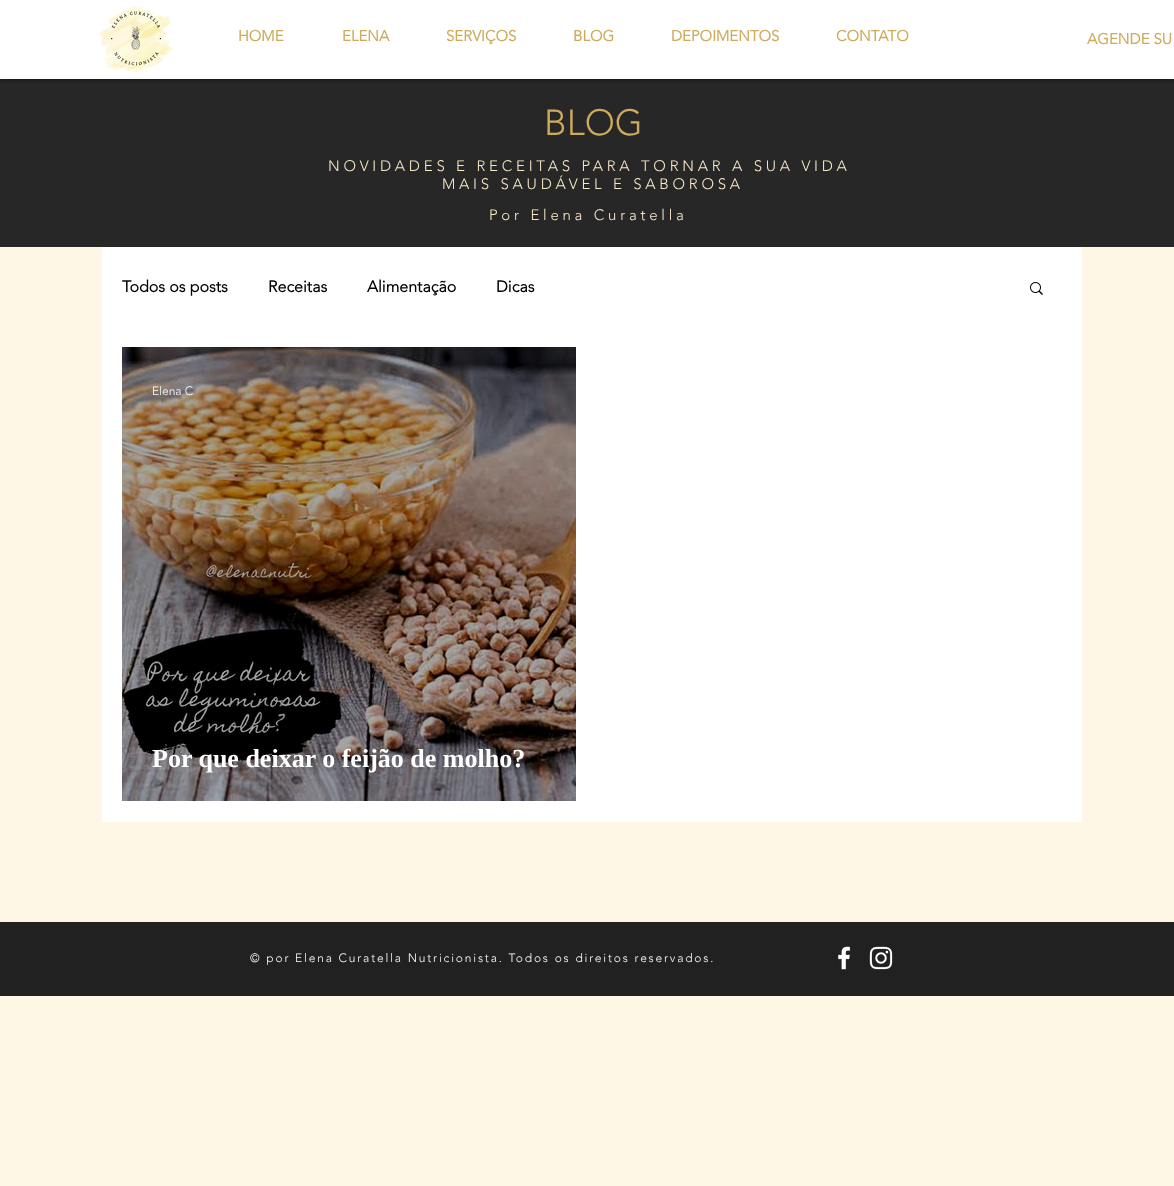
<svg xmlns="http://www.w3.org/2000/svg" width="1174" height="1186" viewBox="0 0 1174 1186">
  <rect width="100%" height="100%" fill="#fff7e6"/>
  <path d="M0 79h1174v168H0z" fill="#282727"/>
  <path d="M0 0h1174v79H0z" fill="#000000b3" filter="blur(2.5px)"/>
  <path d="M0 0h1174v79H0z" fill="#fff"/>
  <image x="99" y="6" width="74" height="67" href="img/1.png"/>
  <path d="M102 247h980v575H102z" fill="#fff"/>
  <image x="1030" y="282" width="13" height="13" href="img/2.png"/>
  <image x="122" y="347" width="454" height="454" href="img/3.png"/>
  <path d="M0 922h1174v74H0z" fill="#212121"/>
  <image x="838" y="946" width="13" height="24" href="img/4.png"/>
  <image x="869" y="946" width="24" height="24" href="img/5.png"/>
  <g font-family="'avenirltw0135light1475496'" font-size="15" font-weight="bold" fill="#ceab5c">
    <text x="238" y="41">HOME</text>
    <text x="342" y="41">ELENA</text>
    <text x="446" y="41">SERVIÇOS</text>
    <text x="573" y="41">BLOG</text>
    <text x="671" y="41">DEPOIMENTOS</text>
    <text x="836" y="41">CONTATO</text>
    <text x="1087" y="44">AGENDE SU</text>
  </g>
  <text x="544" y="135" font-family="'avenirltw0135light1475496'" font-size="36" font-weight="300" fill="#ceab5c">BLOG</text>
  <g font-family="'avenirltw0135light1475496'" font-size="15" font-weight="300" letter-spacing="3.75" fill="#f9eac7">
    <text x="328" y="171">NOVIDADES E RECEITAS PARA TORNAR A SUA VIDA</text>
    <text x="442" y="189">MAIS SAUDÁVEL E SABOROSA</text>
    <text x="489" y="220">Por Elena Curatella</text>
  </g>
  <g font-family="'avenirltw0135light1475496'" font-size="16" font-weight="bold" fill="#000">
    <text x="122" y="292">Todos os posts</text>
    <text x="268" y="292">Receitas</text>
    <text x="367" y="292">Alimentação</text>
    <text x="496" y="292">Dicas</text>
  </g>
  <text x="152" y="395" font-family="'avenirltw0135light1475496'" font-size="12" font-weight="300" fill="#fff">Elena C</text>
  <text x="152" y="767" font-family="Liberation Serif" font-size="26" font-weight="bold" fill="#fff">Por que deixar o feijão de molho?</text>
  <text x="250" y="962" font-family="'avenirltw0135light1475496'" font-size="12" font-weight="300" letter-spacing="1.8" fill="#fff">© por Elena Curatella Nutricionista. Todos os direitos reservados.</text>
</svg>
